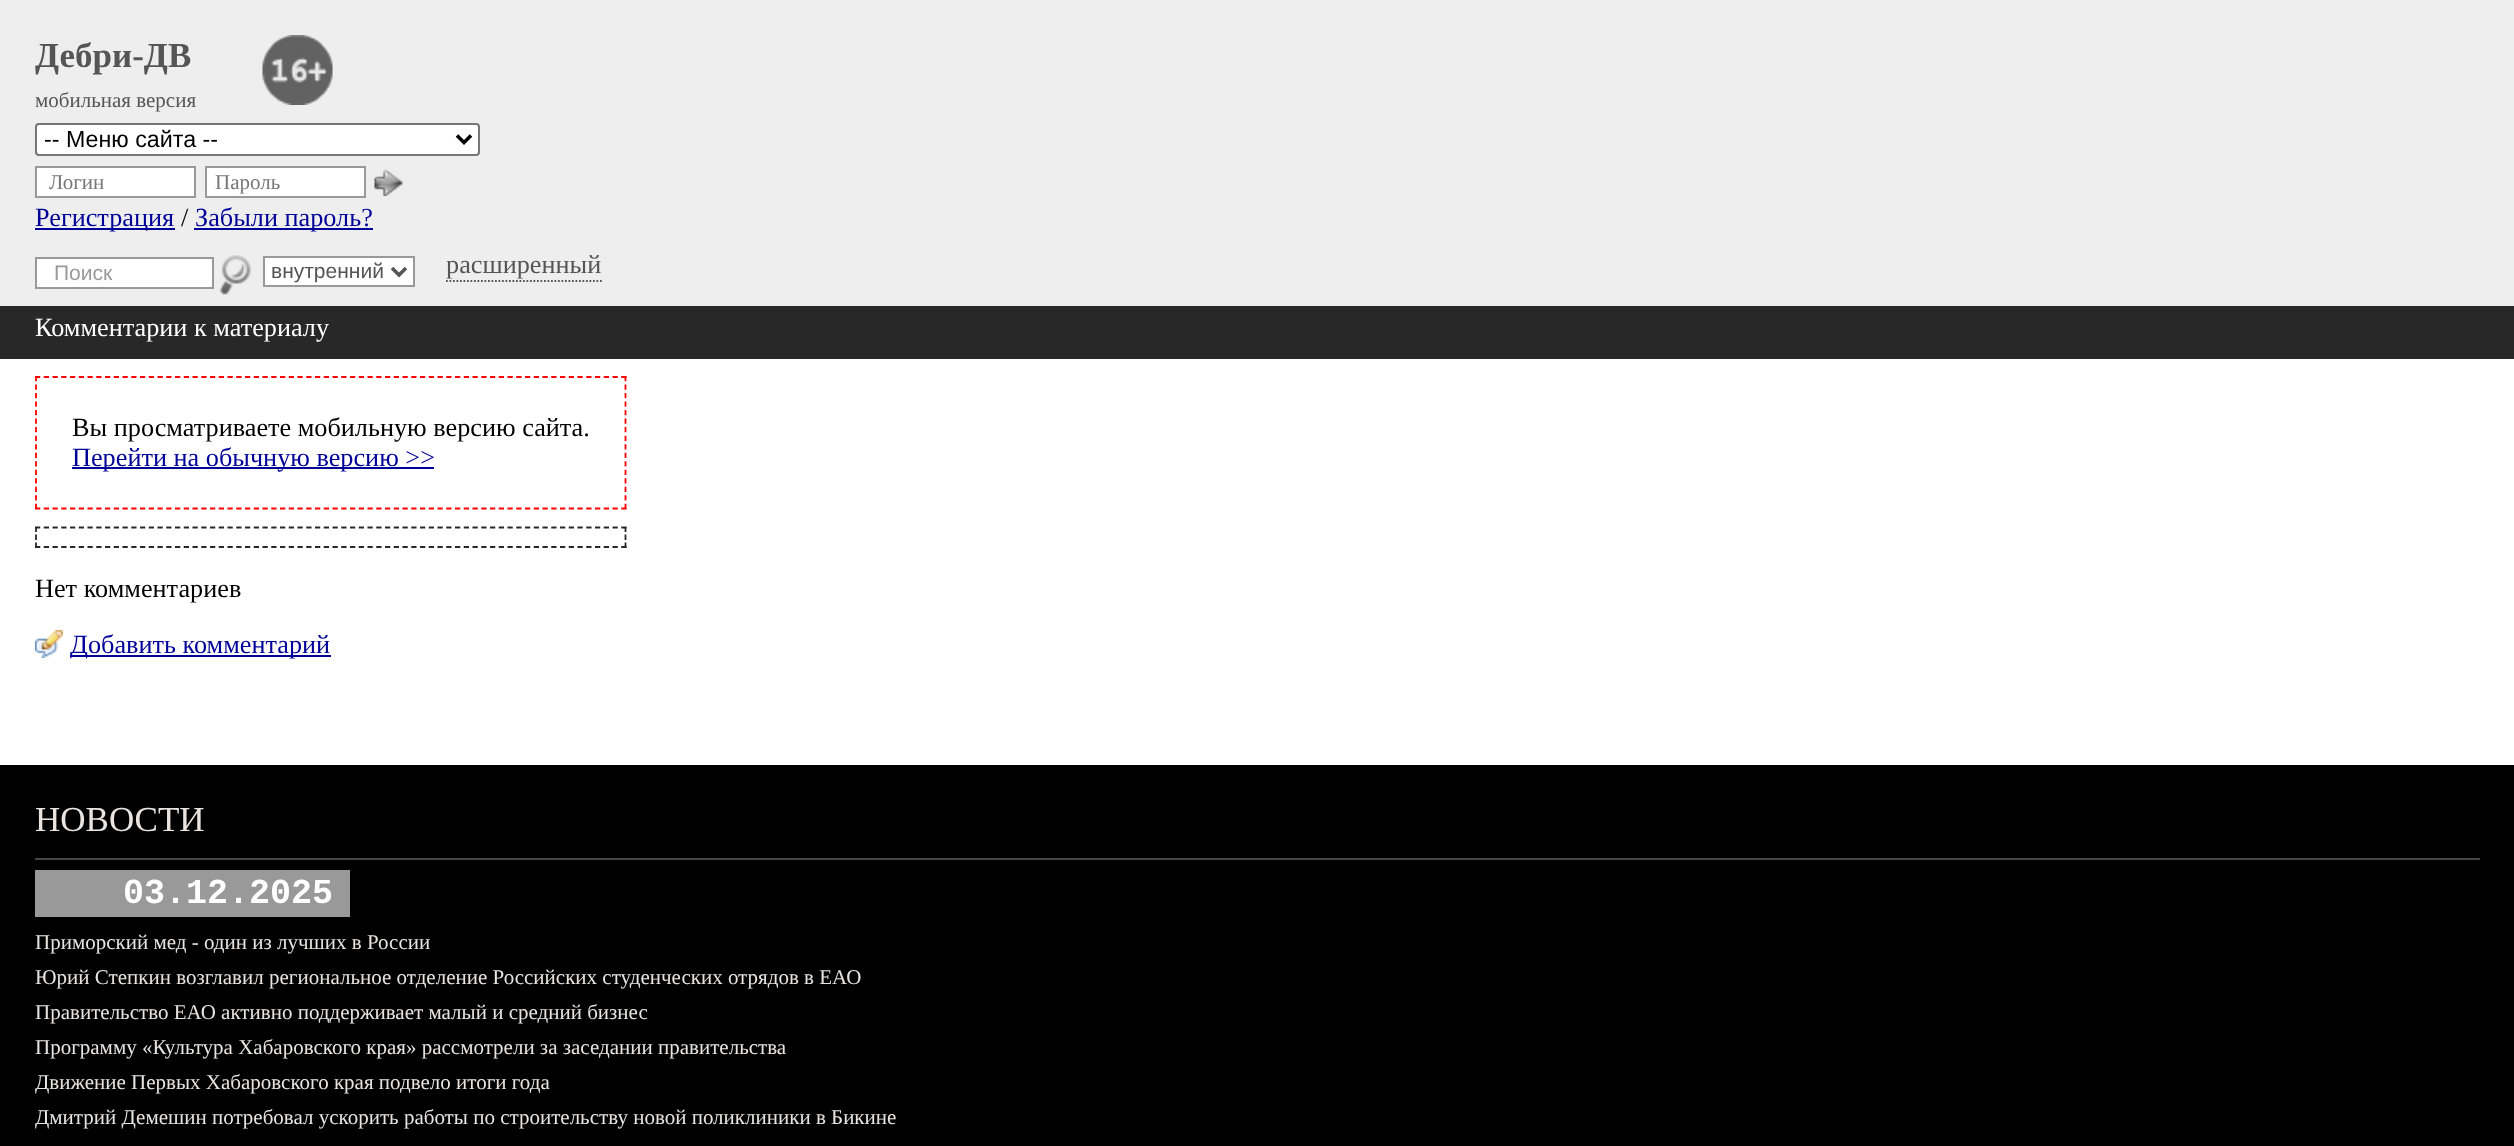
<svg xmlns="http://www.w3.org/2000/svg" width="2514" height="1146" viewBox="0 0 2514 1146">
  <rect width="100%" height="100%" fill="#fff"/>
  <path d="M0 0h2514v306H0z" fill="#eee"/>
  <image x="262" y="35" width="71" height="70" href="img/1.png"/>
  <rect x="36" y="124" width="443" height="31" rx="3" fill="#fff" stroke="#767676" stroke-width="2"/>
  <path d="M457 135.5L464 142.5L471 135.5" fill="none" stroke="#000" stroke-width="3.5"/>
  <path d="M36 167h159v30H36z" fill="#fff" stroke="#999" stroke-width="2"/>
  <path d="M206 167h159v30H206z" fill="#fff" stroke="#999" stroke-width="2"/>
  <image x="374" y="169" width="29" height="27" href="img/2.png"/>
  <path d="M35 228h140v2H35z" fill="#009"/>
  <path d="M194 228h179v2H194z" fill="#009"/>
  <path d="M36 258h177v30H36z" fill="#fff" stroke="#999" stroke-width="2"/>
  <image x="220" y="255" width="31" height="40" href="img/3.png"/>
  <path d="M264 257h150v29H264z" fill="#fff" stroke="#999" stroke-width="2"/>
  <path d="M392 268L399 275L406 268" fill="none" stroke="#555" stroke-width="3.5"/>
  <path d="M446 281H602" fill="none" stroke="#555" stroke-width="1.8" stroke-dasharray="1.75 1.75"/>
  <path d="M0 306h2514v53H0z" fill="#282828"/>
  <path d="M35 377H626.5" fill="none" stroke="#f00" stroke-width="1.8" stroke-dasharray="5.25 3.5"/>
  <path d="M625.5 376V509" fill="none" stroke="#f00" stroke-width="1.8" stroke-dasharray="5.25 3.27"/>
  <path d="M35 508.5H626.5" fill="none" stroke="#f00" stroke-width="1.8" stroke-dasharray="5.25 3.5"/>
  <path d="M36 376V509" fill="none" stroke="#f00" stroke-width="1.8" stroke-dasharray="5.25 3.27"/>
  <path d="M72 467h362v2H72z" fill="#009"/>
  <path d="M35 527.5H626.5" fill="none" stroke="#282828" stroke-width="1.8" stroke-dasharray="5.25 3.5"/>
  <path d="M625.5 527V532M625.5 534.5V540M625.5 542.5V548" fill="none" stroke="#282828" stroke-width="1.8"/>
  <path d="M35 547H626.5" fill="none" stroke="#282828" stroke-width="1.8" stroke-dasharray="5.25 3.5"/>
  <path d="M36 527V532M36 534.5V540M36 542.5V548" fill="none" stroke="#282828" stroke-width="1.8"/>
  <image x="35" y="630" width="28" height="28" href="img/4.png"/>
  <path d="M70 655h261v2H70z" fill="#009"/>
  <path d="M0 765h2514v381H0z" fill="#000"/>
  <path d="M35 858h2445v2H35z" fill="#464544"/>
  <path d="M35 870h315v47H35z" fill="#999"/>
  <text x="35" y="67" font-family="Liberation Serif" font-size="35" font-weight="bold" fill="#555">Дебри-ДВ</text>
  <text x="35" y="107" font-family="Liberation Serif" font-size="21" fill="#555">мобильная версия</text>
  <text x="44" y="147" font-family="Liberation Sans" font-size="23.25" fill="#000">-- Меню сайта --</text>
  <g font-family="Liberation Serif" font-size="21" fill="#777">
    <text x="49" y="189">Логин</text>
    <text x="215" y="189">Пароль</text>
  </g>
  <text x="35" y="226" font-family="Liberation Serif" font-size="26.25" fill="#009">Регистрация</text>
  <text x="181" y="226" font-family="Liberation Serif" font-size="26.25" fill="#000">/</text>
  <text x="195" y="226" font-family="Liberation Serif" font-size="26.25" fill="#009">Забыли пароль?</text>
  <text x="54" y="280" font-family="Liberation Sans" font-size="21" fill="#999">Поиск</text>
  <text x="271" y="278" font-family="Liberation Sans" font-size="21" fill="#555">внутренний</text>
  <text x="446" y="273" font-family="Liberation Serif" font-size="26.25" fill="#555">расширенный</text>
  <text x="35" y="336" font-family="Liberation Serif" font-size="26.25" fill="#fff">Комментарии к материалу</text>
  <text x="72" y="436" font-family="Liberation Serif" font-size="26.25" fill="#000">Вы просматриваете мобильную версию сайта.</text>
  <text x="72" y="466" font-family="Liberation Serif" font-size="26.25" fill="#009">Перейти на обычную версию &gt;&gt;</text>
  <text x="35" y="597" font-family="Liberation Serif" font-size="26.25" fill="#000">Нет комментариев</text>
  <text x="70" y="653" font-family="Liberation Serif" font-size="26.25" fill="#009">Добавить комментарий</text>
  <text x="35" y="831" font-family="Liberation Serif" font-size="35" fill="#e9e4e0">НОВОСТИ</text>
  <text x="123" y="903" font-family="Liberation Mono" font-size="35" font-weight="bold" fill="#fff">03.12.2025</text>
  <g font-family="Liberation Serif" font-size="21" fill="#e9e4e0">
    <text x="35" y="949">Приморский мед - один из лучших в России</text>
    <text x="35" y="984">Юрий Степкин возглавил региональное отделение Российских студенческих отрядов в ЕАО</text>
    <text x="35" y="1019">Правительство ЕАО активно поддерживает малый и средний бизнес</text>
    <text x="35" y="1054">Программу «Культура Хабаровского края» рассмотрели за заседании правительства</text>
    <text x="35" y="1089">Движение Первых Хабаровского края подвело итоги года</text>
    <text x="35" y="1124">Дмитрий Демешин потребовал ускорить работы по строительству новой поликлиники в Бикине</text>
  </g>
</svg>
